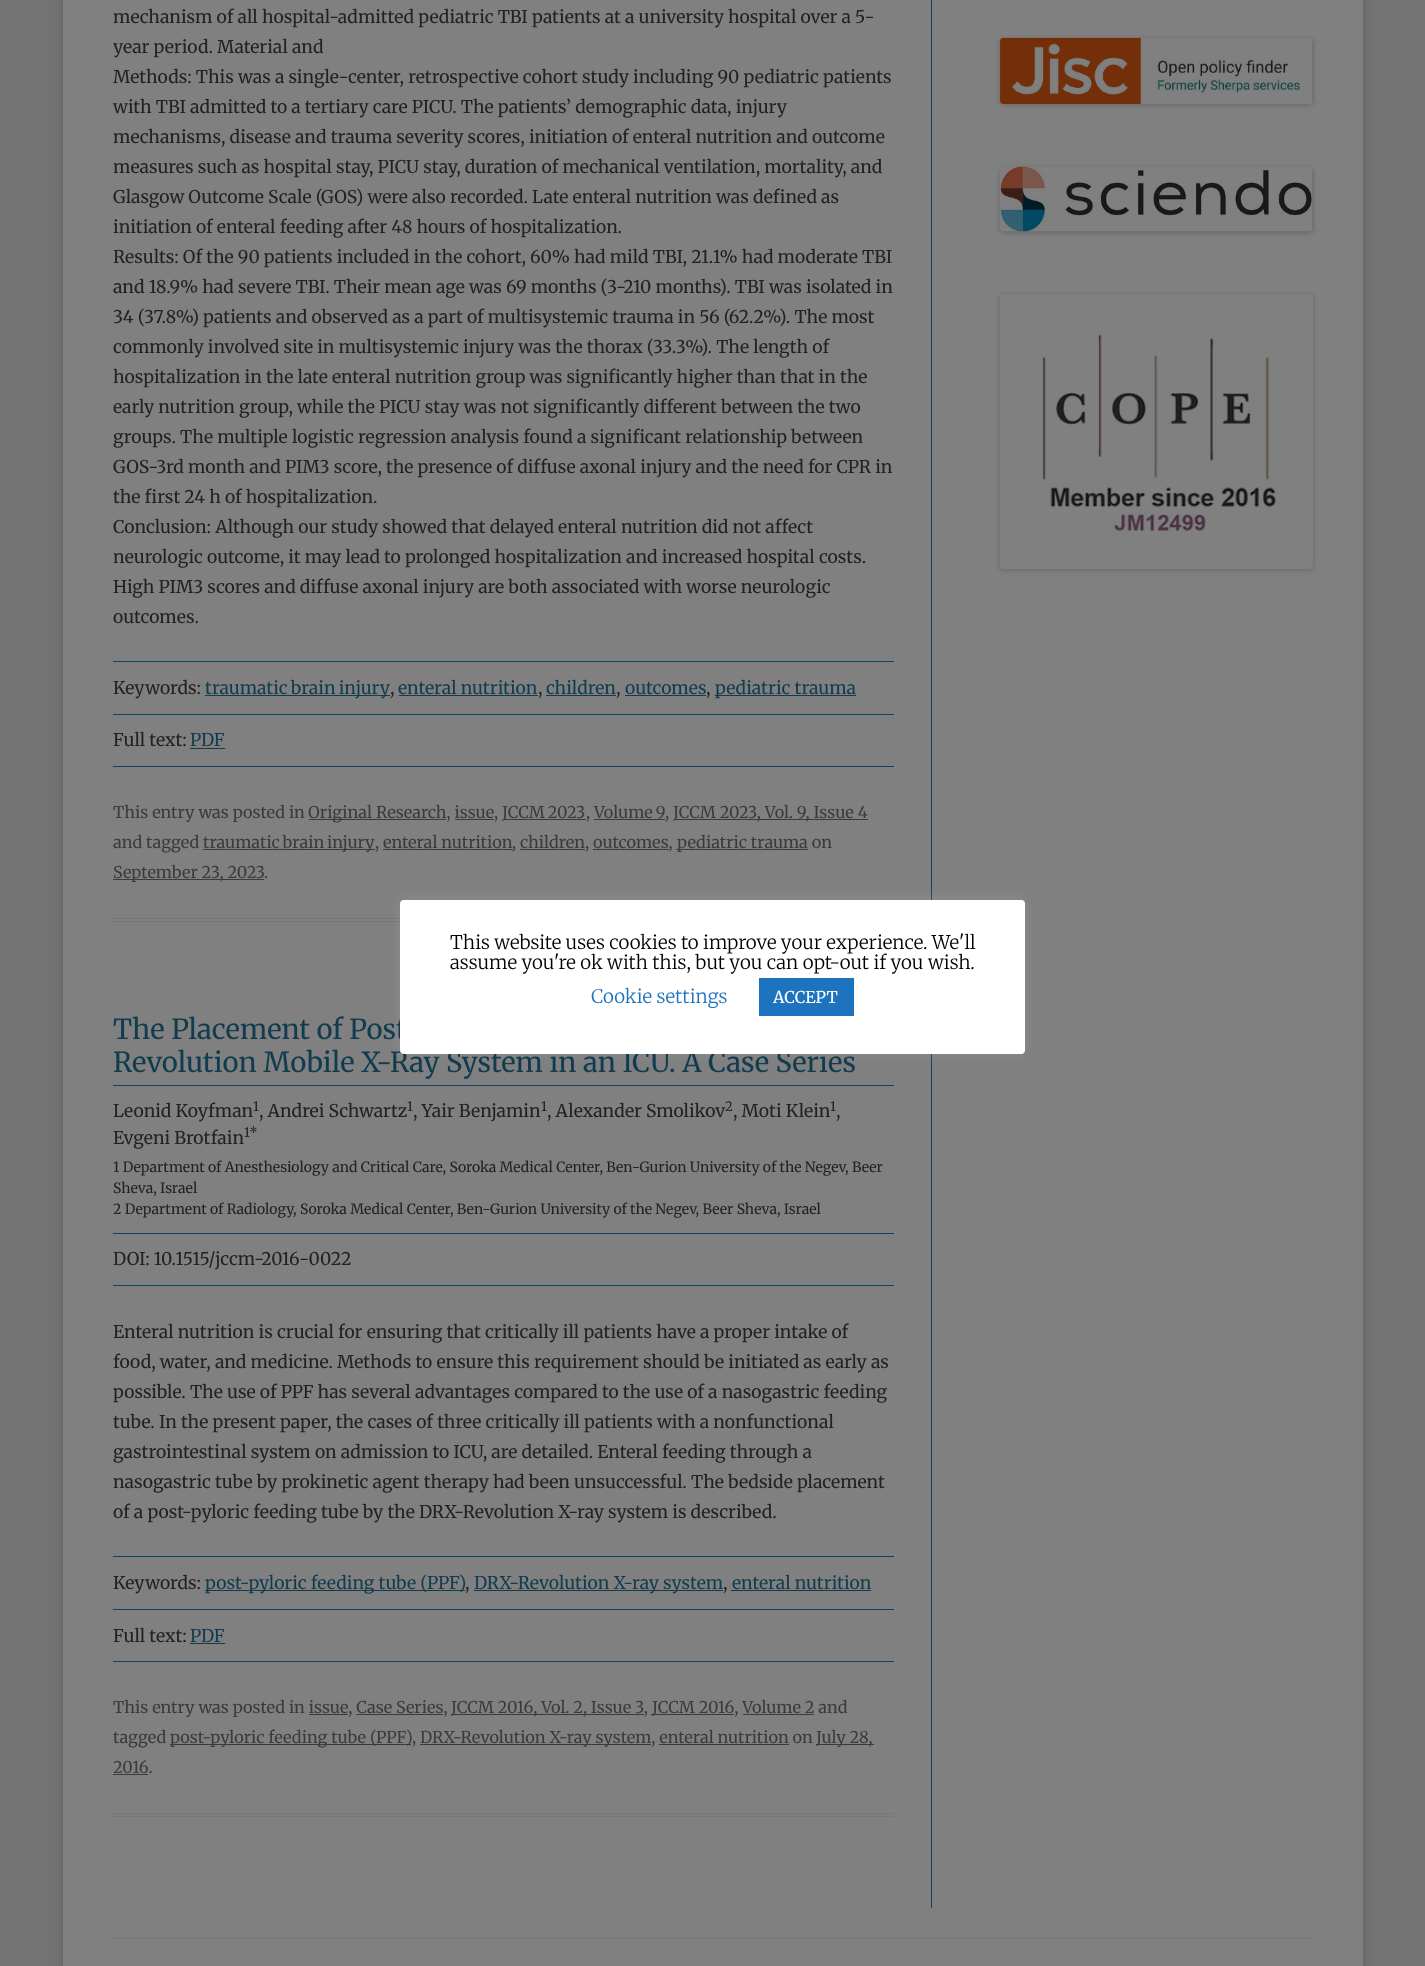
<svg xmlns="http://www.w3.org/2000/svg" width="1425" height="1966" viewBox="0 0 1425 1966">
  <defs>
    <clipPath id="clip1"><path d="M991 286H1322V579H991ZM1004 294H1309C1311 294 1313 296 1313 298V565C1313 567 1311 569 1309 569H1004C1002 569 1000 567 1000 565V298C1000 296 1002 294 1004 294Z" clip-rule="evenodd"/></clipPath>
  </defs>
  <rect width="100%" height="100%" fill="#737373"/>
  <path d="M63 -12h1300v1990H63z" fill="#3232324d" filter="blur(4px)"/>
  <path d="M63 0h1300v1966H63z" fill="#808080"/>
  <path d="M931 0h1v1908H931z" fill="#0d4364"/>
  <path d="M113 918h287v1H113z" fill="#777"/>
  <path d="M113 921h287v1H113z" fill="#777"/>
  <path d="M113 661h781v1H113z" fill="#0d4364"/>
  <path d="M113 714h781v1H113z" fill="#0d4364"/>
  <path d="M205 695h185v1H205z" fill="#113b4e"/>
  <path d="M399 695h139v1H399z" fill="#113b4e"/>
  <path d="M546 695h70v1H546z" fill="#113b4e"/>
  <path d="M625 695h81v1H625z" fill="#113b4e"/>
  <path d="M715 695h141v1H715z" fill="#113b4e"/>
  <path d="M113 766h781v1H113z" fill="#0d4364"/>
  <path d="M190 748h35v1H190z" fill="#113b4e"/>
  <path d="M309 819h137v1H309z" fill="#3b3b3b"/>
  <path d="M503 819h83v1H503z" fill="#3b3b3b"/>
  <path d="M594 819h71v1H594z" fill="#3b3b3b"/>
  <path d="M674 819h194v1H674z" fill="#3b3b3b"/>
  <path d="M455 819h39v1H455z" fill="#3b3b3b"/>
  <path d="M203 849h172v1H203z" fill="#3b3b3b"/>
  <path d="M676 849h132v1H676z" fill="#3b3b3b"/>
  <path d="M383 849h130v1H383z" fill="#3b3b3b"/>
  <path d="M520 849h65v1H520z" fill="#3b3b3b"/>
  <path d="M593 849h76v1H593z" fill="#3b3b3b"/>
  <path d="M113 879h151v1H113z" fill="#3b3b3b"/>
  <path d="M113 1813h781v1H113z" fill="#777"/>
  <path d="M113 1816h781v1H113z" fill="#777"/>
  <path d="M113 1085h781v1H113z" fill="#0d4364"/>
  <path d="M113 1233h781v1H113z" fill="#0d4364"/>
  <path d="M113 1285h781v1H113z" fill="#0d4364"/>
  <path d="M113 1556h781v1H113z" fill="#0d4364"/>
  <path d="M113 1609h781v1H113z" fill="#0d4364"/>
  <path d="M205 1590h260v1H205z" fill="#113b4e"/>
  <path d="M474 1590h249v1H474z" fill="#113b4e"/>
  <path d="M731 1590h140v1H731z" fill="#113b4e"/>
  <path d="M113 1661h781v1H113z" fill="#0d4364"/>
  <path d="M190 1643h35v1H190z" fill="#113b4e"/>
  <path d="M451 1714h193v1H451z" fill="#3b3b3b"/>
  <path d="M651 1714h83v1H651z" fill="#3b3b3b"/>
  <path d="M309 1714h39v1H309z" fill="#3b3b3b"/>
  <path d="M356 1714h87v1H356z" fill="#3b3b3b"/>
  <path d="M743 1714h71v1H743z" fill="#3b3b3b"/>
  <path d="M170 1744h241v1H170z" fill="#3b3b3b"/>
  <path d="M420 1744h231v1H420z" fill="#3b3b3b"/>
  <path d="M816 1744h58v1H816z" fill="#3b3b3b"/>
  <path d="M659 1744h130v1H659z" fill="#3b3b3b"/>
  <path d="M113 1774h35v1H113z" fill="#3b3b3b"/>
  <rect x="1000" y="39" width="313" height="66" rx="4" fill="#00000033" filter="blur(2.5px)"/>
  <image x="1000" y="37" width="312" height="67" href="img/1.png"/>
  <rect x="1000" y="168" width="313" height="65" rx="4" fill="#00000033" filter="blur(2.5px)"/>
  <image x="1000" y="166" width="312" height="66" href="img/2.png"/>
  <g clip-path="url(#clip1)">
    <rect x="1000" y="295" width="313" height="275" rx="4" fill="#00000033" filter="blur(2.5px)"/>
  </g>
  <image x="1000" y="334" width="312" height="235" href="img/3.png"/>
  <path d="M113 1938h1200v1H113z" fill="#777"/>
  <rect x="400" y="899" width="625" height="154" rx="4" fill="#acabab4d" filter="blur(6px)"/>
  <g font-family="Merriweather" font-size="17.5" fill="#222">
    <text x="113" y="23">mechanism of all hospital-admitted pediatric TBI patients at a university hospital over a 5-</text>
    <text x="113" y="53">year period. Material and</text>
    <text x="113" y="83">Methods: This was a single-center, retrospective cohort study including 90 pediatric patients</text>
    <text x="113" y="113">with TBI admitted to a tertiary care PICU. The patients’ demographic data, injury</text>
    <text x="113" y="143">mechanisms, disease and trauma severity scores, initiation of enteral nutrition and outcome</text>
    <text x="113" y="173">measures such as hospital stay, PICU stay, duration of mechanical ventilation, mortality, and</text>
    <text x="113" y="203">Glasgow Outcome Scale (GOS) were also recorded. Late enteral nutrition was defined as</text>
    <text x="113" y="233">initiation of enteral feeding after 48 hours of hospitalization.</text>
    <text x="113" y="263">Results: Of the 90 patients included in the cohort, 60% had mild TBI, 21.1% had moderate TBI</text>
    <text x="113" y="293">and 18.9% had severe TBI. Their mean age was 69 months (3-210 months). TBI was isolated in</text>
    <text x="113" y="323">34 (37.8%) patients and observed as a part of multisystemic trauma in 56 (62.2%). The most</text>
    <text x="113" y="353">commonly involved site in multisystemic injury was the thorax (33.3%). The length of</text>
    <text x="113" y="383">hospitalization in the late enteral nutrition group was significantly higher than that in the</text>
    <text x="113" y="413">early nutrition group, while the PICU stay was not significantly different between the two</text>
    <text x="113" y="443">groups. The multiple logistic regression analysis found a significant relationship between</text>
    <text x="113" y="473">GOS-3rd month and PIM3 score, the presence of diffuse axonal injury and the need for CPR in</text>
    <text x="113" y="503">the first 24 h of hospitalization.</text>
    <text x="113" y="533">Conclusion: Although our study showed that delayed enteral nutrition did not affect</text>
    <text x="113" y="563">neurologic outcome, it may lead to prolonged hospitalization and increased hospital costs.</text>
    <text x="113" y="593">High PIM3 scores and diffuse axonal injury are both associated with worse neurologic</text>
    <text x="113" y="623">outcomes.</text>
    <text x="113" y="694">Keywords:</text>
  </g>
  <text x="205" y="694" word-spacing="-1" font-family="Merriweather" font-size="17.5" fill="#113b4e">traumatic brain injury</text>
  <text x="390" y="694" font-family="Merriweather" font-size="17.5" fill="#222">,</text>
  <text x="398" y="694" font-family="Merriweather" font-size="17.5" fill="#113b4e">enteral nutrition</text>
  <text x="538" y="694" font-family="Merriweather" font-size="17.5" fill="#222">,</text>
  <text x="546" y="694" font-family="Merriweather" font-size="17.5" fill="#113b4e">children</text>
  <text x="616" y="694" font-family="Merriweather" font-size="17.5" fill="#222">,</text>
  <text x="625" y="694" font-family="Merriweather" font-size="17.5" fill="#113b4e">outcomes</text>
  <text x="706" y="694" font-family="Merriweather" font-size="17.5" fill="#222">,</text>
  <text x="715" y="694" font-family="Merriweather" font-size="17.5" fill="#113b4e">pediatric trauma</text>
  <text x="113" y="746" font-family="Merriweather" font-size="17.5" fill="#222">Full text:</text>
  <text x="190" y="746" font-family="Merriweather" font-size="17.5" fill="#113b4e">PDF</text>
  <g font-family="Merriweather" font-size="16.25" fill="#3b3b3b">
    <text x="113" y="818">This entry was posted in</text>
    <text x="308" y="818">Original Research, issue,</text>
    <text x="502" y="818" word-spacing="-1">JCCM 2023</text>
    <text x="586" y="818">,</text>
    <text x="594" y="818" word-spacing="-1">Volume 9</text>
    <text x="665" y="818">,</text>
    <text x="673" y="818">JCCM 2023, Vol. 9, Issue 4</text>
    <text x="113" y="848">and tagged</text>
    <text x="203" y="848" word-spacing="-1">traumatic brain injury</text>
    <text x="375" y="848">, enteral nutrition</text>
    <text x="512" y="848">, children, outcomes,</text>
    <text x="677" y="848">pediatric trauma on</text>
    <text x="113" y="878">September 23, 2023</text>
    <text x="264" y="878">.</text>
  </g>
  <g font-family="Merriweather" font-size="27.5" fill="#113b4e">
    <text x="113" y="1039">The Placement of Post</text>
    <text x="113" y="1072">Revolution Mobile X-Ray System in an ICU. A Case Series</text>
  </g>
  <text x="113" y="1117" font-family="Merriweather" font-size="17.5" fill="#222">Leonid Koyfman</text>
  <text x="253" y="1111" font-family="Merriweather" font-size="13" fill="#222">1</text>
  <text x="259" y="1117" font-family="Merriweather" font-size="17.5" fill="#222">, Andrei Schwartz</text>
  <text x="407" y="1111" font-family="Merriweather" font-size="13" fill="#222">1</text>
  <text x="413" y="1117" font-family="Merriweather" font-size="17.5" fill="#222">, Yair Benjamin</text>
  <text x="541" y="1111" font-family="Merriweather" font-size="13" fill="#222">1</text>
  <text x="547" y="1117" font-family="Merriweather" font-size="17.5" fill="#222">, Alexander Smolikov</text>
  <text x="725" y="1111" font-family="Merriweather" font-size="13" fill="#222">2</text>
  <text x="733" y="1117" font-family="Merriweather" font-size="17.5" fill="#222">, Moti Klein</text>
  <text x="830" y="1111" font-family="Merriweather" font-size="13" fill="#222">1</text>
  <g font-family="Merriweather" font-size="17.5" fill="#222">
    <text x="836" y="1117">,</text>
    <text x="113" y="1144">Evgeni Brotfain</text>
  </g>
  <text x="244" y="1137" font-family="Merriweather" font-size="13" fill="#222">1*</text>
  <g font-family="Merriweather" font-size="14" fill="#222">
    <text x="113" y="1172">1 Department of Anesthesiology and Critical Care, Soroka Medical Center, Ben-Gurion University of the Negev, Beer</text>
    <text x="113" y="1193">Sheva, Israel</text>
    <text x="113" y="1214">2 Department of Radiology, Soroka Medical Center, Ben-Gurion University of the Negev, Beer Sheva, Israel</text>
  </g>
  <g font-family="Merriweather" font-size="17.5" fill="#222">
    <text x="113" y="1265">DOI: 10.1515/jccm-2016-0022</text>
    <text x="113" y="1338">Enteral nutrition is crucial for ensuring that critically ill patients have a proper intake of</text>
    <text x="113" y="1368">food, water, and medicine. Methods to ensure this requirement should be initiated as early as</text>
    <text x="113" y="1398">possible. The use of PPF has several advantages compared to the use of a nasogastric feeding</text>
    <text x="113" y="1428">tube. In the present paper, the cases of three critically ill patients with a nonfunctional</text>
    <text x="113" y="1458">gastrointestinal system on admission to ICU, are detailed. Enteral feeding through a</text>
    <text x="113" y="1488">nasogastric tube by prokinetic agent therapy had been unsuccessful. The bedside placement</text>
    <text x="113" y="1518">of a post-pyloric feeding tube by the DRX-Revolution X-ray system is described.</text>
    <text x="113" y="1589">Keywords:</text>
  </g>
  <text x="205" y="1589" font-family="Merriweather" font-size="17.5" fill="#113b4e">post-pyloric feeding tube (PPF)</text>
  <text x="465" y="1589" font-family="Merriweather" font-size="17.5" fill="#222">,</text>
  <text x="474" y="1589" font-family="Merriweather" font-size="17.5" fill="#113b4e">DRX-Revolution X-ray system</text>
  <text x="723" y="1589" font-family="Merriweather" font-size="17.5" fill="#222">,</text>
  <text x="732" y="1589" font-family="Merriweather" font-size="17.5" fill="#113b4e">enteral nutrition</text>
  <text x="113" y="1642" font-family="Merriweather" font-size="17.5" fill="#222">Full text:</text>
  <text x="190" y="1642" font-family="Merriweather" font-size="17.5" fill="#113b4e">PDF</text>
  <g font-family="Merriweather" font-size="16.25" fill="#3b3b3b">
    <text x="113" y="1713">This entry was posted in issue, Case Series,</text>
    <text x="451" y="1713">JCCM 2016, Vol. 2, Issue 3,</text>
    <text x="652" y="1713">JCCM 2016, Volume 2 and</text>
    <text x="113" y="1743">tagged</text>
    <text x="170" y="1743">post-pyloric feeding tube (PPF)</text>
    <text x="412" y="1743">,</text>
    <text x="420" y="1743">DRX-Revolution X-ray system, enteral nutrition on</text>
    <text x="816" y="1743">July 28,</text>
    <text x="113" y="1773">2016.</text>
  </g>
  <rect x="400" y="900" width="625" height="154" rx="4" fill="#fff"/>
  <g font-family="Merriweather" font-size="18.75" font-weight="300" fill="#000">
    <text x="450" y="949">This website uses cookies to improve your experience. We'll</text>
    <text x="450" y="969">assume you're ok with this, but you can opt-out if you wish.</text>
  </g>
  <text x="591" y="1003" font-family="Merriweather" font-size="18.75" font-weight="300" fill="#1e73be">Cookie settings</text>
  <path d="M759 978h95v38H759z" fill="#1e73be"/>
  <text x="773" y="1003" font-family="Merriweather" font-size="16.25" fill="#fff">ACCEPT</text>
</svg>
